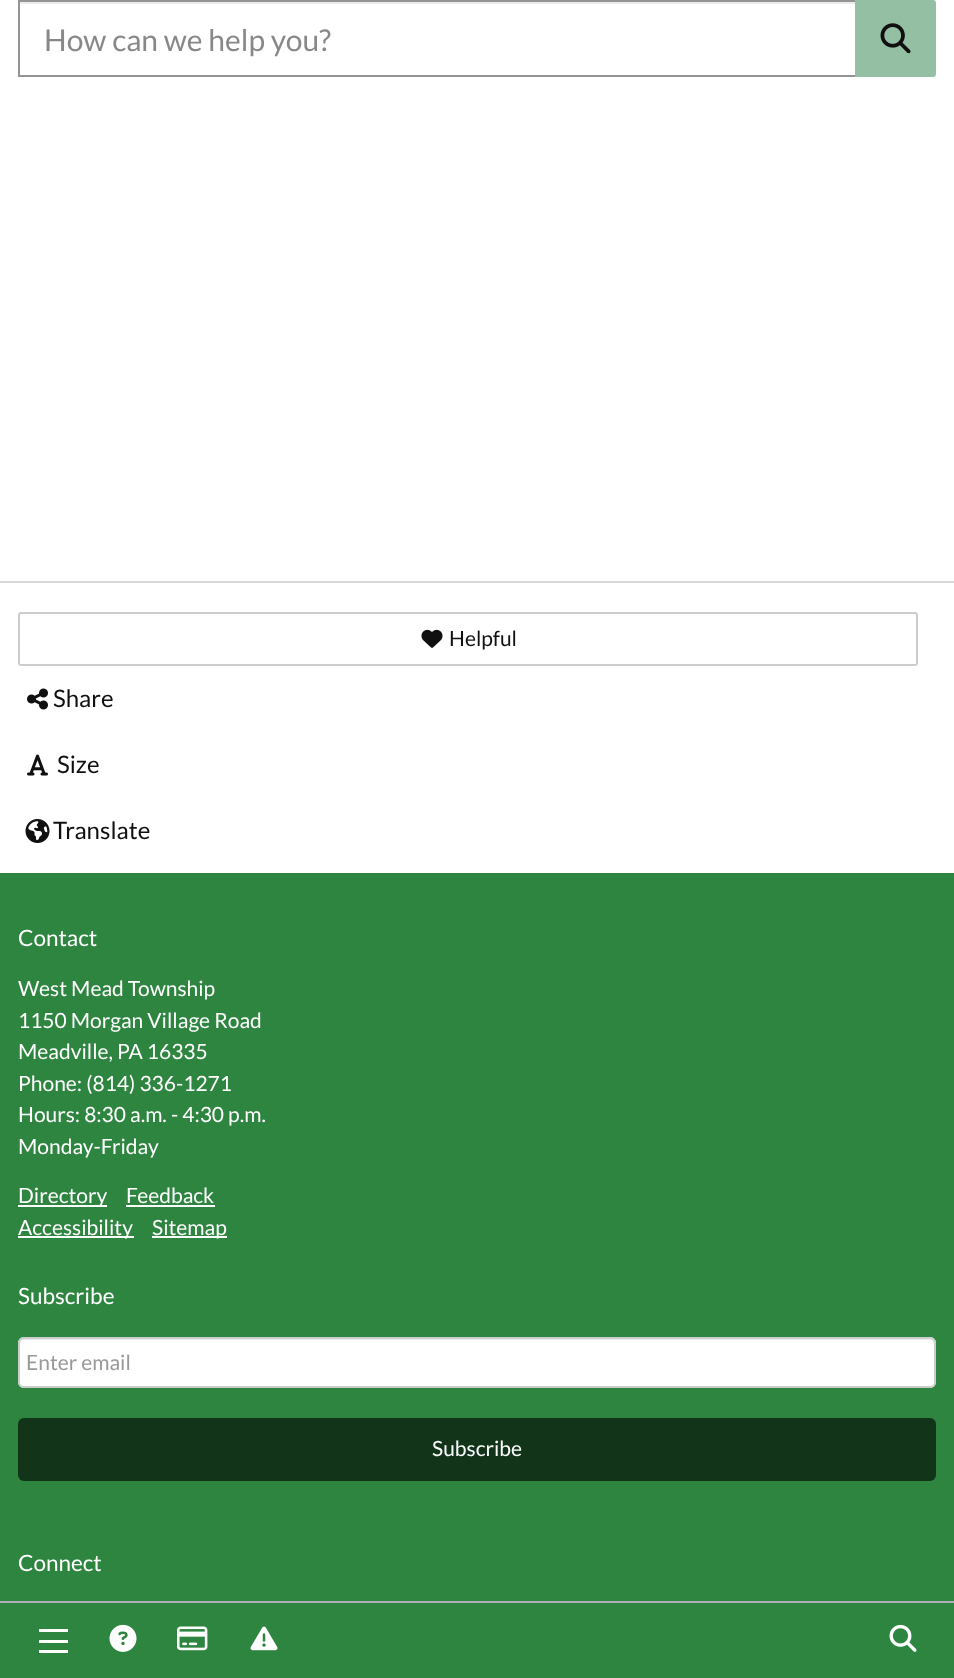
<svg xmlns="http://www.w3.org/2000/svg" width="954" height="1678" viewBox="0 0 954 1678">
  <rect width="100%" height="100%" fill="#fff"/>
  <path d="M20 2h835v2H20z" fill="#ececec"/>
  <path d="M19 1h837v75H19z" fill="none" stroke="#949494" stroke-width="2"/>
  <path d="M856 1H933C934 1 935 2 935 3V74C935 75 934 76 933 76H856Z" fill="#94bfa2" stroke="#94bfa2" stroke-width="2"/>
  <image x="880" y="23" width="31" height="31" href="img/1.png"/>
  <path d="M0 581h954v2H0z" fill="#d6d7d9"/>
  <rect x="19" y="613" width="898" height="52" rx="2" fill="none" stroke="#ccc" stroke-width="2"/>
  <image x="421" y="629" width="22" height="19" href="img/2.png"/>
  <image x="27" y="688" width="21" height="22" href="img/3.png"/>
  <image x="27" y="754" width="21" height="22" href="img/4.png"/>
  <image x="25" y="819" width="25" height="24" href="img/5.png"/>
  <path d="M0 873h954v728H0z" fill="#2e8540"/>
  <path d="M18 1205h89v2H18z" fill="#fff"/>
  <path d="M126 1205h89v2H126z" fill="#fff"/>
  <path d="M18 1236h116v2H18z" fill="#fff"/>
  <path d="M152 1236h75v2H152z" fill="#fff"/>
  <rect x="18" y="1337" width="918" height="51" rx="6" fill="#fff"/>
  <path d="M24 1340H930C932 1340 934 1342 934 1344V1384C935 1383 935 1382 935 1381V1343C935 1340 933 1338 930 1338H25C22 1338 20 1340 20 1343V1344C20 1342 22 1340 24 1340Z" fill="#ececec"/>
  <rect x="19" y="1338" width="916" height="49" rx="5" fill="none" stroke="#ccc" stroke-width="2"/>
  <rect x="18" y="1418" width="918" height="63" rx="6" fill="#12351a"/>
  <path d="M0 1603h954v75H0z" fill="#2e8540"/>
  <path d="M0 1601h954v2H0z" fill="#aeb0b5"/>
  <image x="109" y="1624" width="28" height="28" href="img/6.png"/>
  <image x="177" y="1626" width="31" height="25" href="img/7.png"/>
  <image x="250" y="1626" width="28" height="25" href="img/8.png"/>
  <image x="889" y="1624" width="28" height="28" href="img/9.png"/>
  <path d="M39 1640h29v3H39z" fill="#fff"/>
  <path d="M39 1629h29v3H39z" fill="#fff"/>
  <path d="M39 1650h29v3H39z" fill="#fff"/>
  <text x="44" y="51" font-family="Lato" font-size="30" fill="#888">How can we help you?</text>
  <text x="449" y="646" font-family="Lato" font-size="21" fill="#101010">Helpful</text>
  <g font-family="Lato" font-size="24" fill="#101010">
    <text x="53" y="707">Share</text>
    <text x="57" y="773">Size</text>
    <text x="53" y="839">Translate</text>
  </g>
  <text x="18" y="946" font-family="Lato" font-size="22.5" fill="#fff">Contact</text>
  <g font-family="Lato" font-size="21" fill="#fff">
    <text x="18" y="996">West Mead Township</text>
    <text x="18" y="1028">1150 Morgan Village Road</text>
    <text x="18" y="1059">Meadville, PA 16335</text>
    <text x="18" y="1091">Phone: (814) 336-1271</text>
    <text x="18" y="1122">Hours: 8:30 a.m. - 4:30 p.m.</text>
    <text x="18" y="1154">Monday-Friday</text>
    <text x="18" y="1203">Directory</text>
    <text x="126" y="1203">Feedback</text>
    <text x="18" y="1235">Accessibility</text>
    <text x="152" y="1235">Sitemap</text>
  </g>
  <text x="18" y="1304" font-family="Lato" font-size="22.5" fill="#fff">Subscribe</text>
  <text x="26" y="1370" font-family="Lato" font-size="21" fill="#999">Enter email</text>
  <text x="432" y="1456" font-family="Lato" font-size="21" fill="#fff">Subscribe</text>
  <text x="18" y="1571" font-family="Lato" font-size="22.5" fill="#fff">Connect</text>
</svg>
